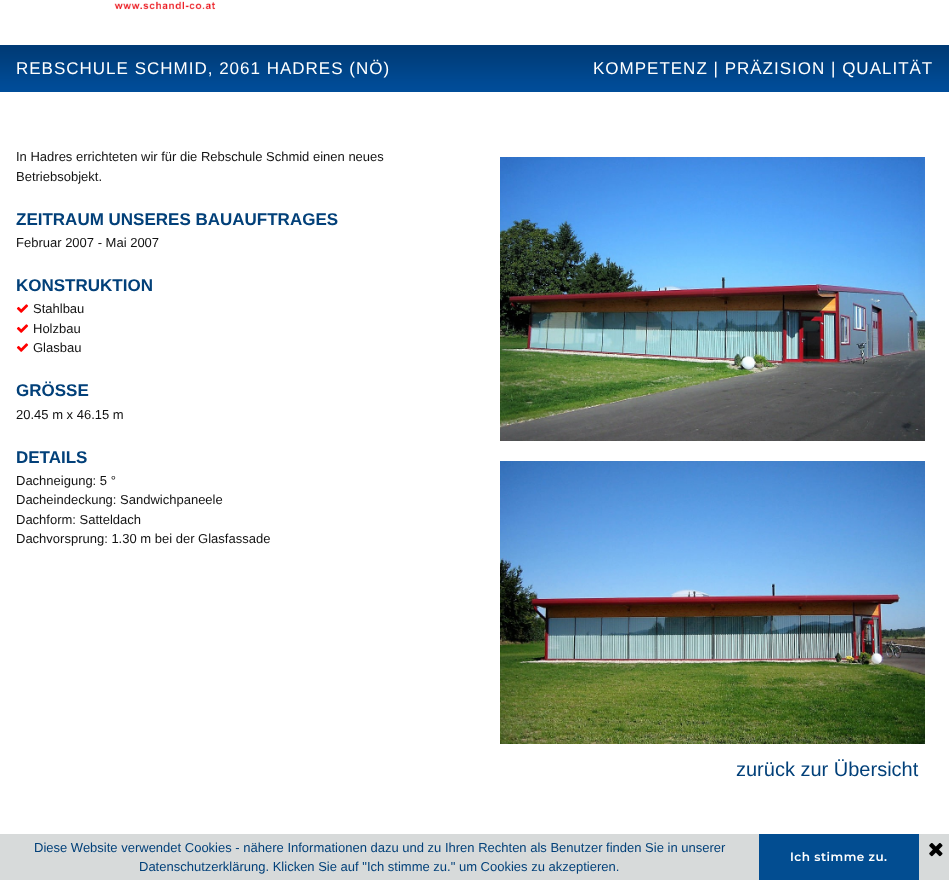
<svg xmlns="http://www.w3.org/2000/svg" width="949" height="880" viewBox="0 0 949 880">
  <rect width="100%" height="100%" fill="#fff"/>
  <image x="114" y="1" width="102" height="9" href="img/1.png"/>
  <image x="0" y="45" width="949" height="47" href="img/2.png"/>
  <image x="16" y="304" width="13" height="9" href="img/3.png"/>
  <image x="16" y="324" width="13" height="9" href="img/3.png"/>
  <image x="16" y="343" width="13" height="9" href="img/3.png"/>
  <image x="500" y="157" width="425" height="284" href="img/4.png"/>
  <image x="500" y="461" width="425" height="283" href="img/5.png"/>
  <path d="M0 834h949v46H0z" fill="#d7dada"/>
  <path d="M759 834h160v46H759z" fill="#024d91"/>
  <image x="929" y="843" width="14" height="14" href="img/6.png"/>
  <g font-family="Liberation Sans" font-size="17" letter-spacing="1" fill="#fff">
    <text x="16" y="74">REBSCHULE SCHMID, 2061 HADRES (NÖ)</text>
    <text x="593" y="74">KOMPETENZ | PRÄZISION | QUALITÄT</text>
  </g>
  <g font-family="Liberation Sans" font-size="13" fill="#121212">
    <text x="16" y="161">In Hadres errichteten wir für die Rebschule Schmid einen neues</text>
    <text x="16" y="181">Betriebsobjekt.</text>
  </g>
  <text x="16" y="225" font-family="Liberation Sans" font-size="17" font-weight="bold" fill="#024079">ZEITRAUM UNSERES BAUAUFTRAGES</text>
  <text x="16" y="247" font-family="Liberation Sans" font-size="13" fill="#121212">Februar 2007 - Mai 2007</text>
  <text x="16" y="291" font-family="Liberation Sans" font-size="17" font-weight="bold" fill="#024079">KONSTRUKTION</text>
  <g font-family="Liberation Sans" font-size="13" fill="#121212">
    <text x="33" y="313">Stahlbau</text>
    <text x="33" y="333">Holzbau</text>
    <text x="33" y="352">Glasbau</text>
  </g>
  <text x="16" y="396" font-family="Liberation Sans" font-size="17" font-weight="bold" fill="#024079">GRÖSSE</text>
  <text x="16" y="419" font-family="Liberation Sans" font-size="13" fill="#121212">20.45 m x 46.15 m</text>
  <text x="16" y="463" font-family="Liberation Sans" font-size="17" font-weight="bold" fill="#024079">DETAILS</text>
  <g font-family="Liberation Sans" font-size="13" fill="#121212">
    <text x="16" y="485">Dachneigung: 5 °</text>
    <text x="16" y="504">Dacheindeckung: Sandwichpaneele</text>
    <text x="16" y="524">Dachform: Satteldach</text>
    <text x="16" y="543">Dachvorsprung: 1.30 m bei der Glasfassade</text>
  </g>
  <text x="736" y="776" font-family="Liberation Sans" font-size="20" fill="#024079">zurück zur Übersicht</text>
  <g font-family="Liberation Sans" font-size="13" fill="#024079">
    <text x="34" y="852">Diese Website verwendet Cookies - nähere Informationen dazu und zu Ihren Rechten als Benutzer finden Sie in unserer</text>
    <text x="139" y="871">Datenschutzerklärung. Klicken Sie auf "Ich stimme zu." um Cookies zu akzeptieren.</text>
  </g>
  <text x="790" y="861" font-family="Montserrat" font-size="12" font-weight="600" letter-spacing="0.5" fill="#fff">Ich stimme zu.</text>
</svg>
